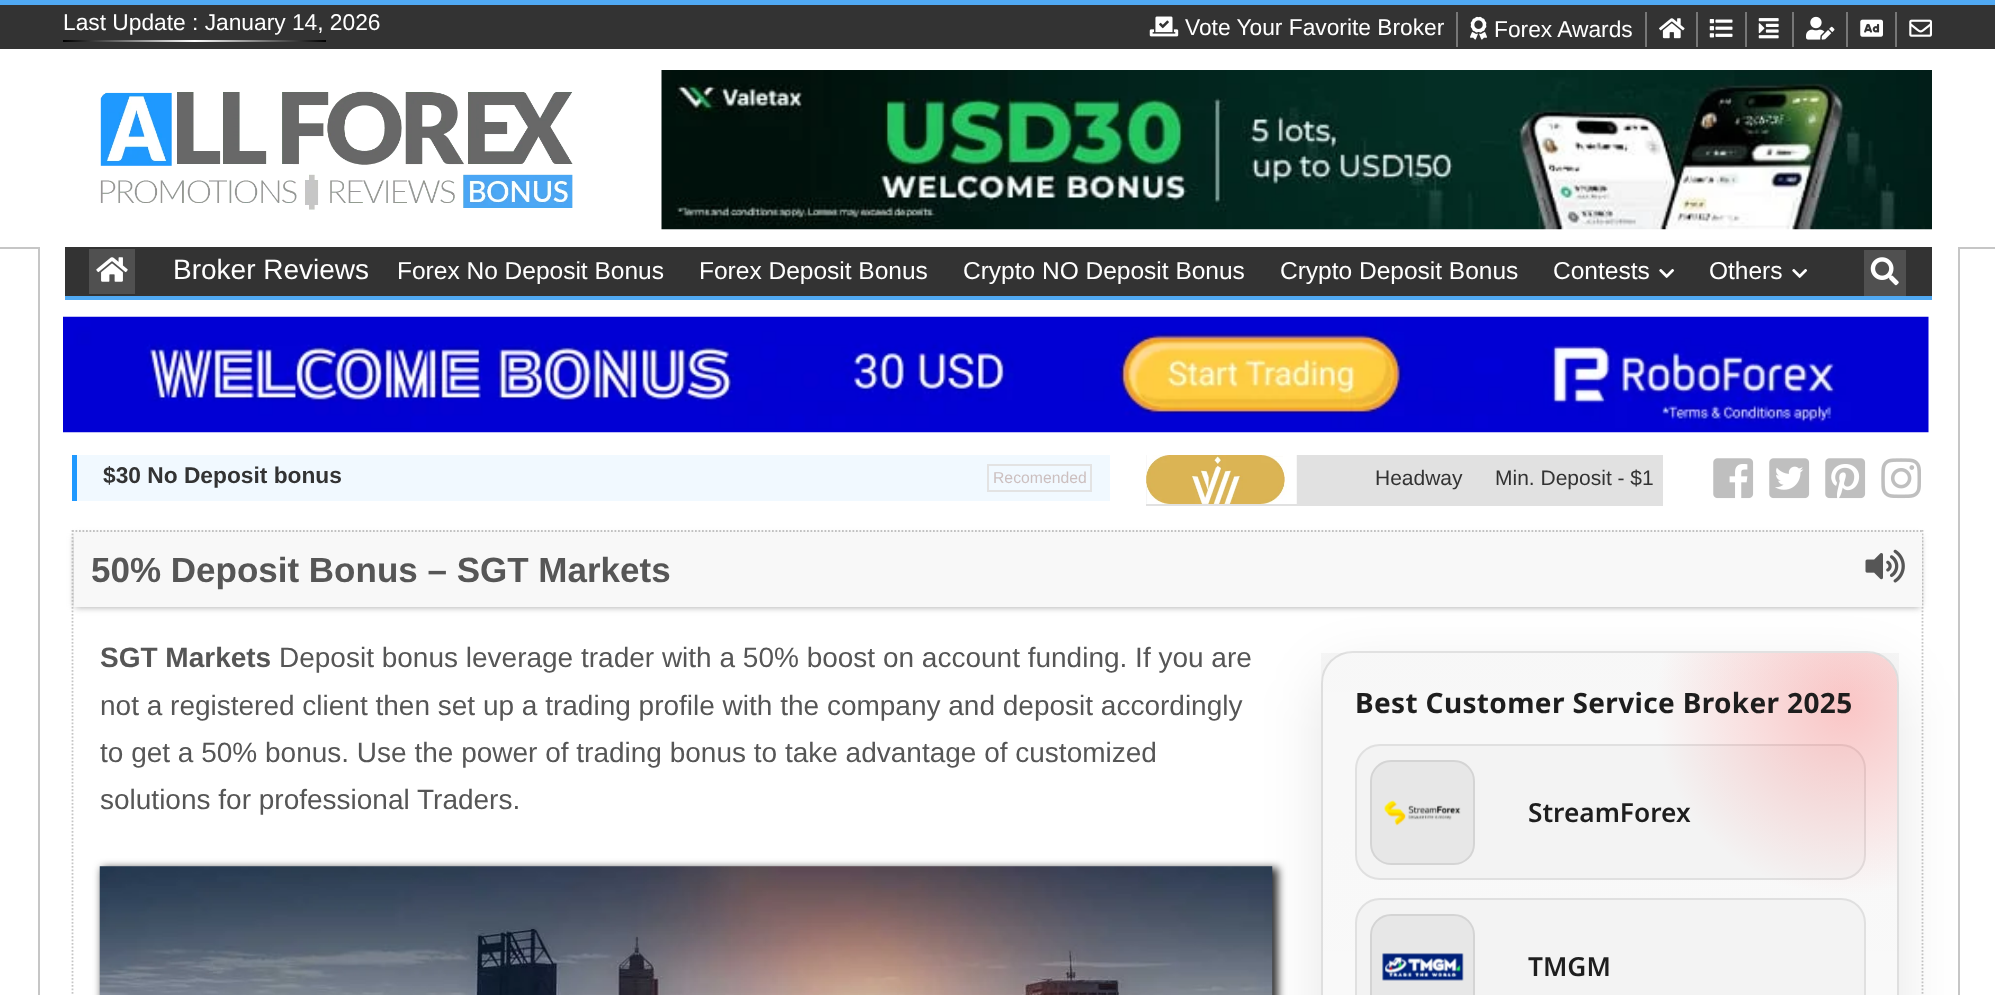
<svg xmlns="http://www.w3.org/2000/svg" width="1995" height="995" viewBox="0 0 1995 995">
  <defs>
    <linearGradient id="g1" gradientUnits="userSpaceOnUse" x1="326" y1="41" x2="63" y2="41"><stop offset="0" stop-color="#000"/><stop offset="0.5" stop-color="#fff"/><stop offset="1" stop-color="#000"/></linearGradient>
    <clipPath id="clip1"><path d="M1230 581H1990V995H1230ZM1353 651H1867C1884.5 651 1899 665.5 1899 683V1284C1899 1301.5 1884.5 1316 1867 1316H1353C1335.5 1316 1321 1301.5 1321 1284V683C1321 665.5 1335.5 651 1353 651Z" clip-rule="evenodd"/></clipPath>
    <clipPath id="clip2"><rect x="1321" y="651" width="578" height="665" rx="32"/></clipPath>
    <linearGradient id="g2" gradientUnits="userSpaceOnUse" x1="1610" y1="-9" x2="1610" y2="653"><stop offset="0" stop-color="#f7f7f7"/><stop offset="1" stop-color="#fbfbfb"/></linearGradient>
    <linearGradient id="g3" gradientUnits="userSpaceOnUse" x1="1610" y1="653" x2="1610" y2="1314"><stop offset="0" stop-color="#000" stop-opacity="0.03"/><stop offset="1" stop-color="#000" stop-opacity="0.02"/></linearGradient>
    <radialGradient id="g4" gradientUnits="userSpaceOnUse" cx="1845" cy="705" r="272"><stop offset="0" stop-color="#ff2d2d" stop-opacity="0.25"/><stop offset="0.7" stop-color="#ff2d2d" stop-opacity="0"/></radialGradient>
  </defs>
  <rect width="100%" height="100%" fill="#fff"/>
  <path d="M0 5h1995v44H0z" fill="#333"/>
  <path d="M0 0h1995v5H0z" fill="#50a9f3"/>
  <path d="M63 40h263v2H63z" fill="url(#g1)"/>
  <path d="M1456 12h2v35H1456z" fill="#777"/>
  <image x="1149" y="16" width="30" height="21" href="img/1.png"/>
  <path d="M1645 12h2v35H1645z" fill="#777"/>
  <image x="1470" y="16" width="17" height="24" href="img/2.png"/>
  <path d="M1696 12h2v35H1696z" fill="#777"/>
  <image x="1659" y="18" width="26" height="21" href="img/3.png"/>
  <path d="M1745 12h2v35H1745z" fill="#777"/>
  <image x="1709" y="19" width="24" height="19" href="img/4.png"/>
  <path d="M1792 12h2v35H1792z" fill="#777"/>
  <image x="1758" y="18" width="21" height="21" href="img/5.png"/>
  <path d="M1846 12h2v35H1846z" fill="#777"/>
  <image x="1806" y="16" width="29" height="24" href="img/6.png"/>
  <path d="M1895 12h2v35H1895z" fill="#777"/>
  <image x="1860" y="19" width="23" height="18" href="img/7.png"/>
  <image x="1909" y="19" width="23" height="18" href="img/8.png"/>
  <image x="100" y="91" width="473" height="119" href="img/9.png"/>
  <image x="661" y="70" width="1271" height="160" href="img/10.png"/>
  <path d="M-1 248h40v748H-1z" fill="none" stroke="#c6c6c6" stroke-width="2"/>
  <path d="M72 531H1923" fill="none" stroke="#c5c5c5" stroke-width="1.8" stroke-dasharray="1.75 1.75"/>
  <path d="M1922.5 530V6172" fill="none" stroke="#c5c5c5" stroke-width="1.8" stroke-dasharray="1.75 1.75"/>
  <path d="M72.5 530V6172" fill="none" stroke="#c5c5c5" stroke-width="1.8" stroke-dasharray="1.75 1.75"/>
  <path d="M75 536h1845v71H75z" fill="#a4a4a4" filter="blur(3.5px)"/>
  <path d="M74 532h1848v75H74z" fill="#f8f8f8"/>
  <image x="1865" y="549" width="40" height="34" href="img/20.png"/>
  <path d="M102 868h1176v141H102z" fill="#333" filter="blur(4.5px)"/>
  <image x="99" y="866" width="1174" height="129" href="img/21.png"/>
  <g clip-path="url(#clip1)">
    <rect x="1321" y="672" width="578" height="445" rx="32" fill="#0000001a" filter="blur(30px)"/>
  </g>
  <path d="M1959 248h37v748H1959z" fill="none" stroke="#c6c6c6" stroke-width="2"/>
  <path d="M65 247h1867v49H65z" fill="#333"/>
  <path d="M89 249h46v45H89z" fill="#505050"/>
  <image x="96" y="257" width="32" height="25" href="img/11.png"/>
  <path d="M65 296h1867v4H65z" fill="#50a9f3"/>
  <image x="1659" y="269" width="16" height="9" href="img/12.png"/>
  <image x="1792" y="269" width="16" height="9" href="img/12.png"/>
  <path d="M1864 250h42v46H1864z" fill="#505050"/>
  <image x="1870" y="257" width="29" height="29" href="img/13.png"/>
  <image x="63" y="316" width="1866" height="117" href="img/14.png"/>
  <path d="M77 455h1033v46H77z" fill="#f1f9ff"/>
  <path d="M72 455h5v46H72z" fill="#2099ff"/>
  <path d="M988 465h103v26H988z" fill="none" stroke="#e3e3e3" stroke-width="2"/>
  <path d="M1146 455h517v51H1146z" fill="#e1e1e1"/>
  <image x="1146" y="455" width="151" height="49" href="img/15.png"/>
  <image x="1713" y="458" width="41" height="41" href="img/16.png"/>
  <image x="1769" y="458" width="41" height="41" href="img/17.png"/>
  <image x="1825" y="458" width="41" height="41" href="img/18.png"/>
  <image x="1881" y="458" width="40" height="41" href="img/19.png"/>
  <g clip-path="url(#clip2)">
    <path d="M1342 651h536v2H1342z" fill="url(#g2)"/>
  </g>
  <path d="M1321 653h578v342H1321z" fill="url(#g3)"/>
  <rect x="1322" y="652" width="576" height="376" rx="31" fill="none" stroke="#0000001a" stroke-width="2"/>
  <rect x="1356" y="745" width="509" height="134" rx="24" fill="#f3f3f3" stroke="#e0e0e0" stroke-width="2"/>
  <path d="M1652 653H1867C1883.5 653 1897 666.5 1897 683V898H1652Z" fill="url(#g4)"/>
  <rect x="1370" y="760" width="105" height="105" rx="21" fill="#e7e7e7"/>
  <rect x="1371" y="761" width="103" height="103" rx="20" fill="none" stroke="#00000014" stroke-width="2"/>
  <image x="1384" y="800" width="77" height="26" href="img/22.png"/>
  <rect x="1356" y="899" width="509" height="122" rx="24" fill="#f3f3f3" stroke="#e0e0e0" stroke-width="2"/>
  <rect x="1370" y="914" width="105" height="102" rx="21" fill="#e7e7e7"/>
  <rect x="1371" y="915" width="103" height="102" rx="20" fill="none" stroke="#00000014" stroke-width="2"/>
  <image x="1382" y="953" width="82" height="28" href="img/23.png"/>
  <g font-family="Liberation Sans" font-size="22.75" fill="#fff">
    <text x="63" y="30">Last Update : January 14, 2026</text>
    <text x="1185" y="35">Vote Your Favorite Broker</text>
    <text x="1494" y="37">Forex Awards</text>
  </g>
  <text x="173" y="279" font-family="Liberation Sans" font-size="28" fill="#fff">Broker Reviews</text>
  <g font-family="Liberation Sans" font-size="24.5" fill="#fff">
    <text x="397" y="279">Forex No Deposit Bonus</text>
    <text x="699" y="279">Forex Deposit Bonus</text>
    <text x="963" y="279">Crypto NO Deposit Bonus</text>
    <text x="1280" y="279">Crypto Deposit Bonus</text>
    <text x="1553" y="279">Contests</text>
    <text x="1709" y="279">Others</text>
  </g>
  <text x="103" y="483" font-family="Liberation Sans" font-size="22.75" font-weight="bold" fill="#333">$30 No Deposit bonus</text>
  <text x="993" y="483" font-family="Liberation Sans" font-size="15.75" fill="#ccbfbf">Recomended</text>
  <g font-family="Liberation Sans" font-size="21" fill="#333">
    <text x="1375" y="485">Headway</text>
    <text x="1495" y="485">Min. Deposit - $1</text>
  </g>
  <text x="91" y="582" font-family="Liberation Sans" font-size="35" font-weight="bold" fill="#565656">50% Deposit Bonus – SGT Markets</text>
  <text x="100" y="667" font-family="Liberation Sans" font-size="28" font-weight="bold" fill="#565656">SGT Markets</text>
  <g font-family="Liberation Sans" font-size="28" fill="#565656">
    <text x="279" y="667">Deposit bonus leverage trader with a 50% boost on account funding. If you are</text>
    <text x="100" y="715">not a registered client then set up a trading profile with the company and deposit accordingly</text>
    <text x="100" y="762">to get a 50% bonus. Use the power of trading bonus to take advantage of customized</text>
    <text x="100" y="809">solutions for professional Traders.</text>
  </g>
  <text x="1355" y="713" font-family="Noto Sans" font-size="28" font-weight="bold" letter-spacing="0.35" fill="#1e1e1e">Best Customer Service Broker 2025</text>
  <g font-family="Noto Sans" font-size="26.25" font-weight="600" fill="#1e1e1e">
    <text x="1528" y="822">StreamForex</text>
    <text x="1528" y="976">TMGM</text>
  </g>
</svg>
